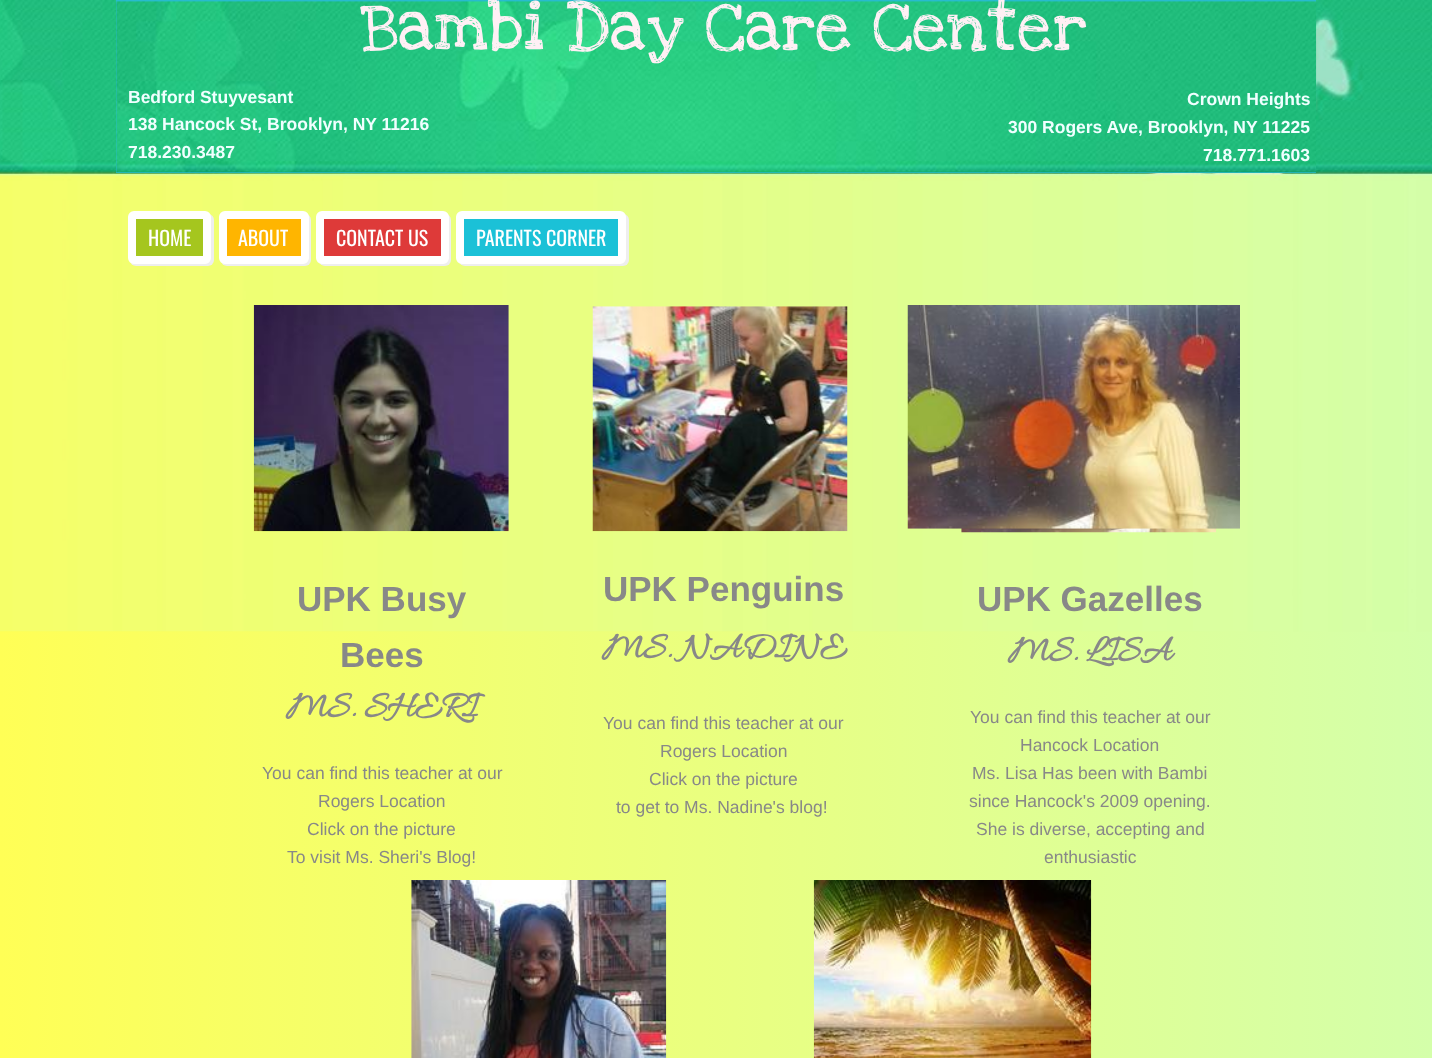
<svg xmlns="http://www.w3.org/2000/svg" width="1432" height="1058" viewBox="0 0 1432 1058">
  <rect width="100%" height="100%" fill="#fff"/>
  <image x="0" y="0" width="1432" height="1058" href="img/1.png"/>
  <path d="M116 0h1200v173H116z" fill="#28bbce"/>
  <image x="116" y="1" width="1201" height="172" href="img/2.png"/>
  <rect x="130" y="214" width="84" height="52" rx="6" fill="#eee" filter="blur(0.5px)"/>
  <rect x="132" y="215" width="75" height="45" rx="2" fill="#a5c61e" stroke="#fff" stroke-width="8"/>
  <rect x="221" y="214" width="90" height="52" rx="6" fill="#eee" filter="blur(0.5px)"/>
  <rect x="223" y="215" width="82" height="45" rx="2" fill="#ffb500" stroke="#fff" stroke-width="8"/>
  <rect x="319" y="214" width="132" height="52" rx="6" fill="#eee" filter="blur(0.5px)"/>
  <rect x="320" y="215" width="125" height="45" rx="2" fill="#de3a39" stroke="#fff" stroke-width="8"/>
  <rect x="459" y="214" width="170" height="52" rx="6" fill="#eee" filter="blur(0.5px)"/>
  <rect x="460" y="215" width="162" height="45" rx="2" fill="#1bc1d7" stroke="#fff" stroke-width="8"/>
  <image x="253" y="305" width="256" height="227" href="img/3.png"/>
  <image x="592" y="306" width="256" height="226" href="img/4.png"/>
  <image x="961" y="528" width="256" height="5" href="img/6.png"/>
  <image x="907" y="305" width="333" height="224" href="img/5.png"/>
  <image x="411" y="880" width="256" height="178" href="img/7.png"/>
  <image x="813" y="880" width="279" height="178" href="img/8.png"/>
  <text x="361" y="49" font-family="Love Ya Like A Sister" font-size="70" fill="#fff0f5">Bambi Day Care Center</text>
  <g font-family="Liberation Sans" font-size="17.5" font-weight="bold" fill="#f0ffff">
    <text x="128" y="103">Bedford Stuyvesant</text>
    <text x="128" y="130">138 Hancock St, Brooklyn, NY 11216</text>
    <text x="128" y="158">718.230.3487</text>
    <text x="1187" y="105">Crown Heights</text>
    <text x="1008" y="133">300 Rogers Ave, Brooklyn, NY 11225</text>
    <text x="1203" y="161">718.771.1603</text>
  </g>
  <g font-family="Oswald" font-size="20" fill="#fff">
    <text x="148" y="246">HOME</text>
    <text x="238" y="246">ABOUT</text>
    <text x="336" y="246">CONTACT US</text>
    <text x="476" y="246">PARENTS CORNER</text>
  </g>
  <g font-family="Liberation Sans" font-size="35" font-weight="bold" fill="#888">
    <text x="297" y="611">UPK Busy</text>
    <text x="340" y="667">Bees</text>
  </g>
  <text x="286" y="716" font-family="Allura" font-size="37.5" font-weight="bold" fill="#888">MS. SHERI</text>
  <g font-family="Liberation Sans" font-size="17.5" fill="#888">
    <text x="262" y="779">You can find this teacher at our</text>
    <text x="318" y="807">Rogers Location</text>
    <text x="307" y="835">Click on the picture</text>
    <text x="287" y="863">To visit Ms. Sheri's Blog!</text>
  </g>
  <text x="603" y="601" font-family="Liberation Sans" font-size="35" font-weight="bold" fill="#888">UPK Penguins</text>
  <text x="602" y="657" font-family="Allura" font-size="37.5" font-weight="bold" fill="#888">MS. NADINE</text>
  <g font-family="Liberation Sans" font-size="17.5" fill="#888">
    <text x="603" y="729">You can find this teacher at our</text>
    <text x="660" y="757">Rogers Location</text>
    <text x="649" y="785">Click on the picture</text>
    <text x="616" y="813">to get to Ms. Nadine's blog!</text>
  </g>
  <text x="977" y="611" font-family="Liberation Sans" font-size="35" font-weight="bold" fill="#888">UPK Gazelles</text>
  <text x="1008" y="660" font-family="Allura" font-size="37.5" font-weight="bold" fill="#888">MS. LISA</text>
  <g font-family="Liberation Sans" font-size="17.5" fill="#888">
    <text x="970" y="723">You can find this teacher at our</text>
    <text x="1020" y="751">Hancock Location</text>
    <text x="972" y="779">Ms. Lisa Has been with Bambi</text>
    <text x="969" y="807">since Hancock's 2009 opening.</text>
    <text x="976" y="835">She is diverse, accepting and</text>
    <text x="1044" y="863">enthusiastic</text>
  </g>
</svg>
